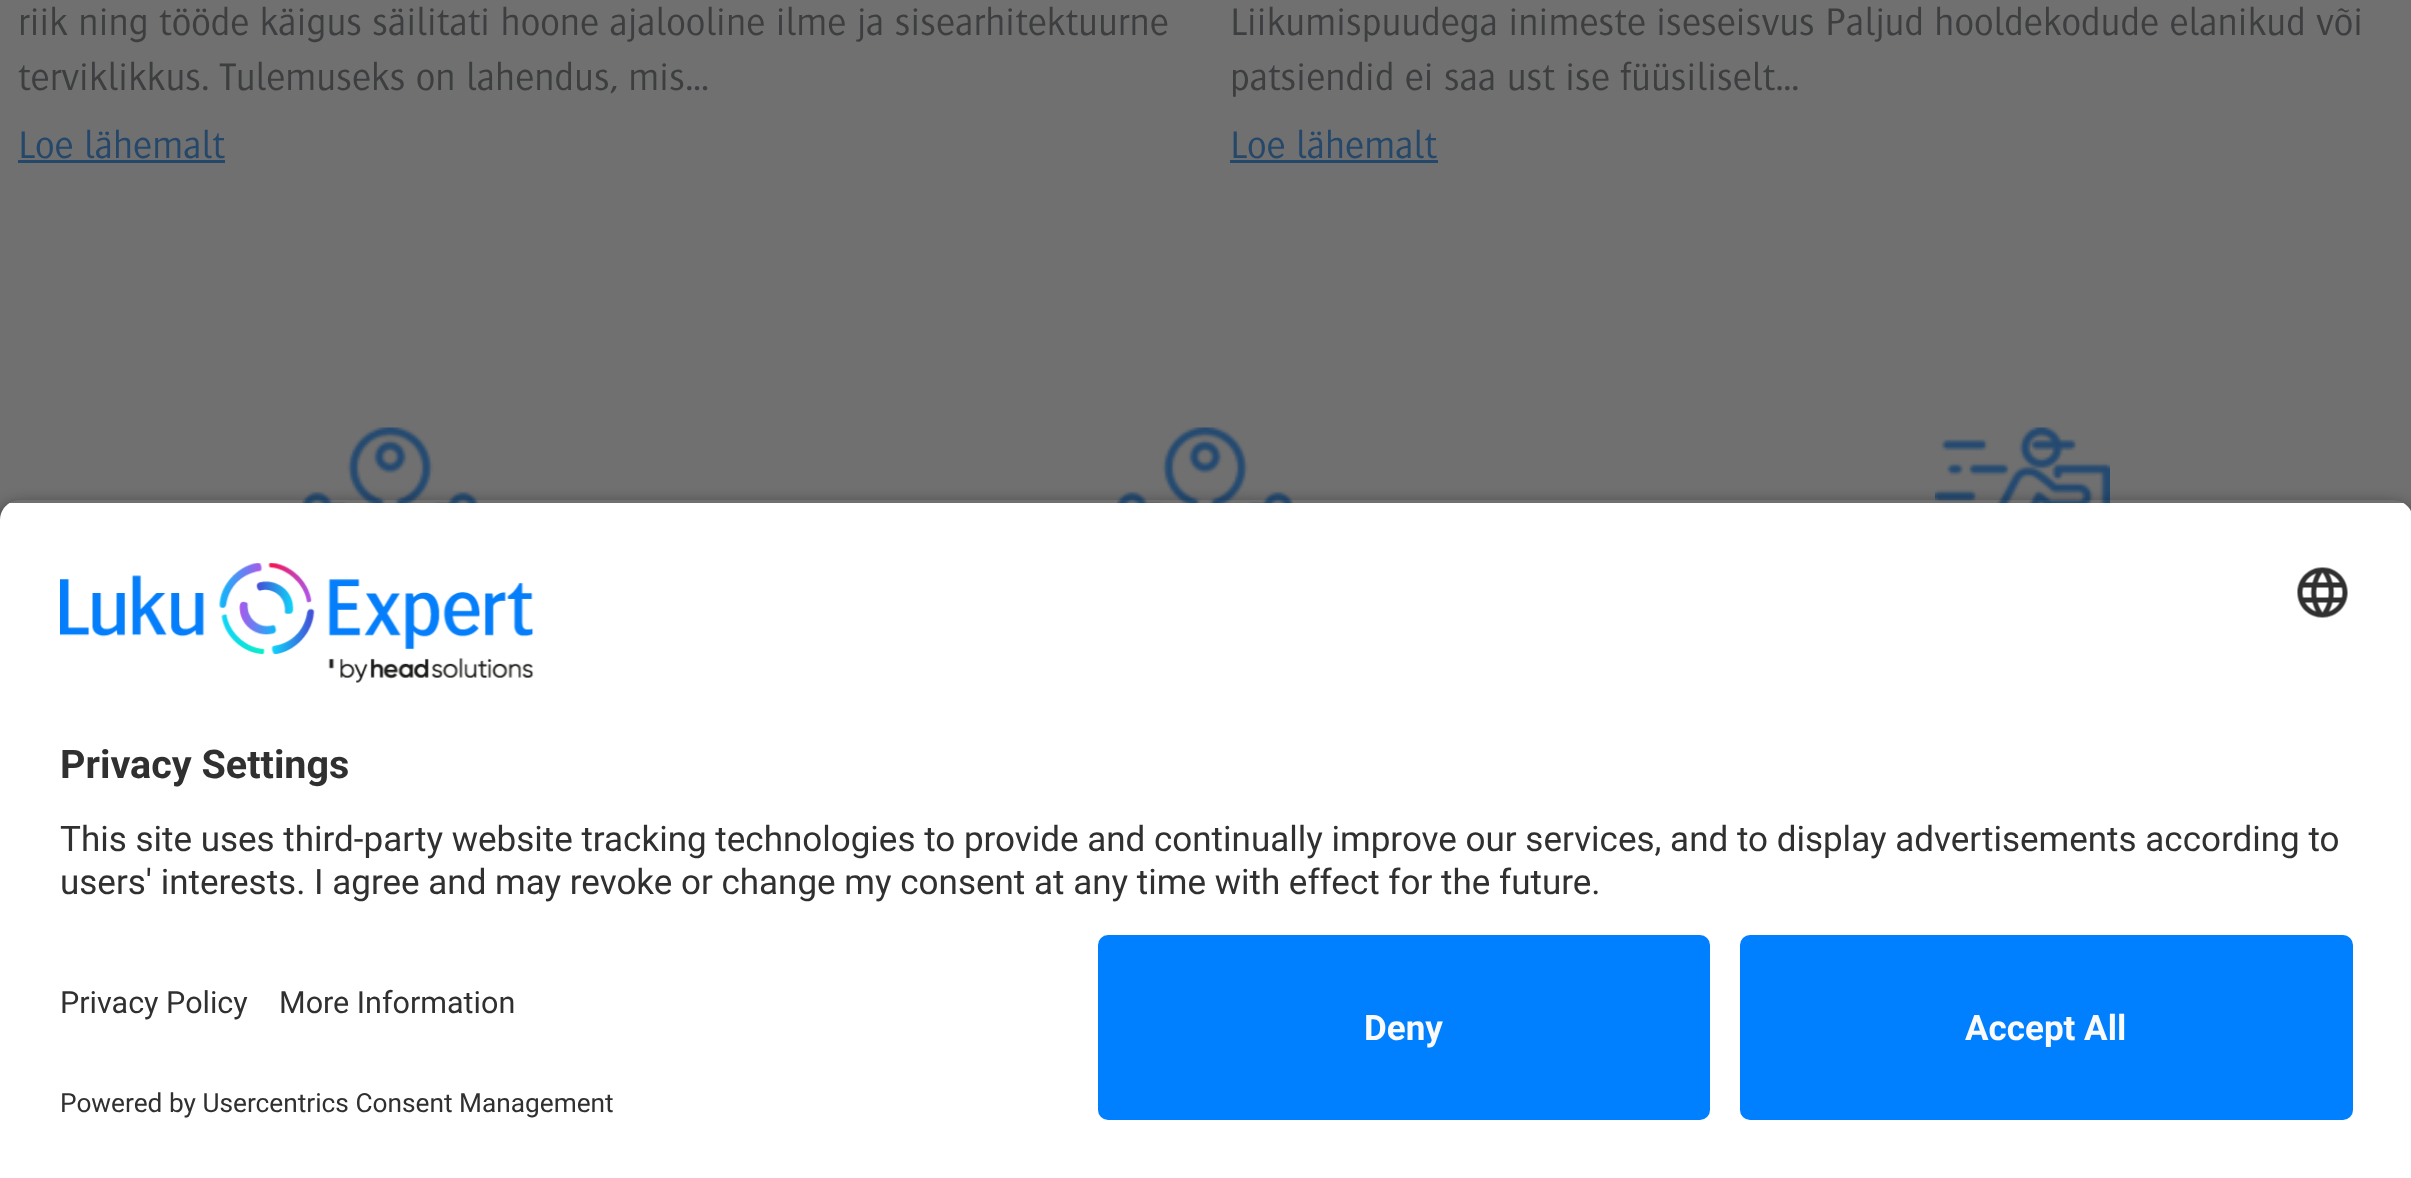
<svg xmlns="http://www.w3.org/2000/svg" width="2411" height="1178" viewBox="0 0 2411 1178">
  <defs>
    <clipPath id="clip1"><path d="M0 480H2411V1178H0ZM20 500H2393C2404 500 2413 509 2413 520V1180H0V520C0 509 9 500 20 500Z" clip-rule="evenodd"/></clipPath>
    <clipPath id="clip2"><path d="M20 500H2393C2404 500 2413 509 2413 520V915H0V520C0 509 9 500 20 500Z"/></clipPath>
  </defs>
  <rect width="100%" height="100%" fill="#707070"/>
  <path d="M18 160h207v3H18z" fill="#24476a"/>
  <path d="M1230 160h208v3H1230z" fill="#24476a"/>
  <image x="302" y="427" width="176" height="76" href="img/1.png"/>
  <image x="1117" y="427" width="176" height="76" href="img/2.png"/>
  <image x="1935" y="427" width="175" height="76" href="img/3.png"/>
  <g clip-path="url(#clip1)">
    <rect y="508" width="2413" height="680" rx="20" fill="#000000cc" filter="blur(9px)"/>
  </g>
  <g clip-path="url(#clip2)">
    <path d="M0 503h2411v412H0z" fill="#fff"/>
  </g>
  <image x="60" y="563" width="474" height="120" href="img/4.png"/>
  <image x="2297" y="567" width="51" height="51" href="img/5.png"/>
  <path d="M0 915h2411v263H0z" fill="#fff"/>
  <rect x="1098" y="935" width="612" height="185" rx="10" fill="#007fff"/>
  <rect x="1740" y="935" width="613" height="185" rx="10" fill="#007fff"/>
  <g font-family="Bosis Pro" font-size="40" font-weight="300" fill="#3c3e40">
    <text x="18" y="35">riik ning tööde käigus säilitati hoone ajalooline ilme ja sisearhitektuurne</text>
    <text x="18" y="90">terviklikkus. Tulemuseks on lahendus, mis...</text>
  </g>
  <text x="18" y="158" font-family="Bosis Pro" font-size="40" font-weight="300" fill="#24476a">Loe lähemalt</text>
  <g font-family="Bosis Pro" font-size="40" font-weight="300" fill="#3c3e40">
    <text x="1230" y="35">Liikumispuudega inimeste iseseisvus Paljud hooldekodude elanikud või</text>
    <text x="1230" y="90">patsiendid ei saa ust ise füüsiliselt...</text>
  </g>
  <text x="1230" y="158" font-family="Bosis Pro" font-size="40" font-weight="300" fill="#24476a">Loe lähemalt</text>
  <text x="60" y="778" font-family="Roboto" font-size="39.5" font-weight="bold" fill="#303030">Privacy Settings</text>
  <g font-family="Roboto" font-size="35" fill="#303030">
    <text x="60" y="851">This site uses third-party website tracking technologies to provide and continually improve our services, and to display advertisements according to</text>
    <text x="60" y="894">users' interests. I agree and may revoke or change my consent at any time with effect for the future.</text>
  </g>
  <g font-family="Roboto" font-size="30.5" fill="#303030">
    <text x="60" y="1013">Privacy Policy</text>
    <text x="279" y="1013">More Information</text>
  </g>
  <text x="60" y="1112" font-family="Roboto" font-size="26.25" fill="#303030">Powered by Usercentrics Consent Management</text>
  <g font-family="Roboto" font-size="35" font-weight="bold" fill="#fafafa">
    <text x="1364" y="1040">Deny</text>
    <text x="1965" y="1040">Accept All</text>
  </g>
</svg>
